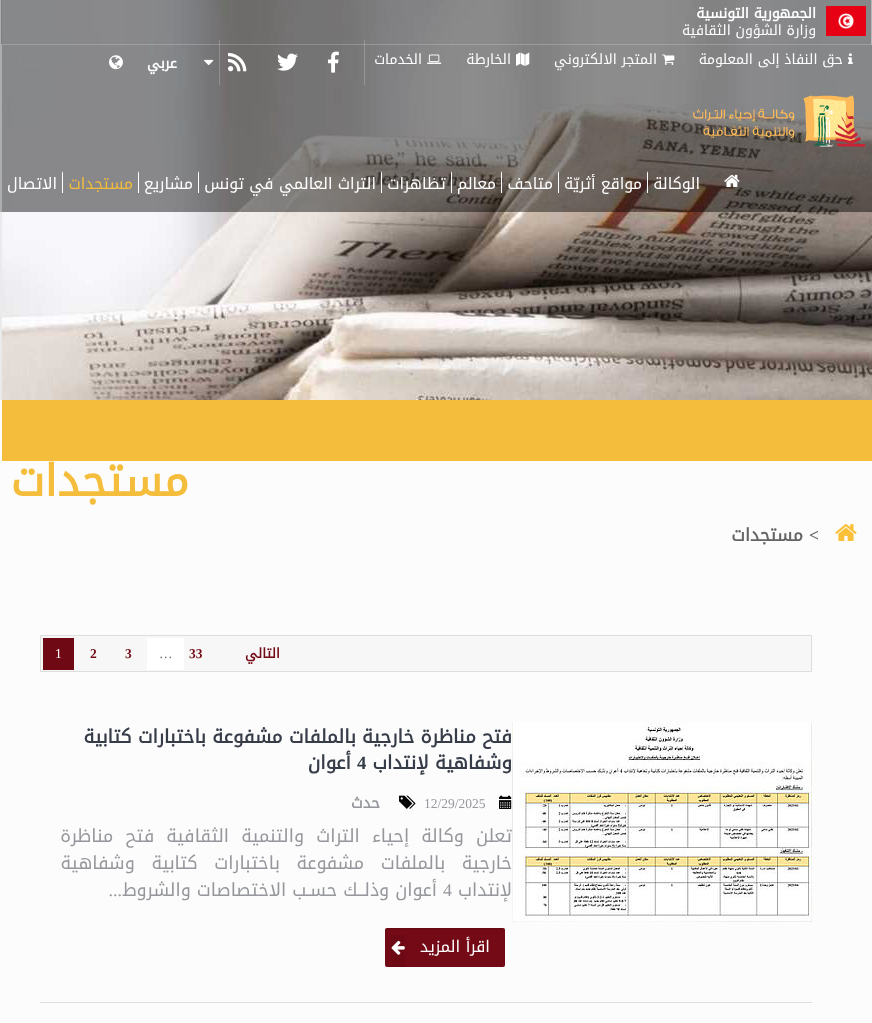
<svg xmlns="http://www.w3.org/2000/svg" width="872" height="1023" viewBox="0 0 872 1023">
  <rect width="100%" height="100%" fill="#fcfcfc"/>
  <path d="M0 0h2v400H0z" fill="#e9eaec"/>
  <image x="2" y="0" width="870" height="400" href="img/1.png"/>
  <path d="M0 0h872v212H0z" fill="#00000042"/>
  <path d="M1 0h870v45H1z" fill="#00000042"/>
  <path d="M1 44h870v1H1z" fill="#ffffff33"/>
  <image x="826" y="6" width="40" height="30" href="img/2.png"/>
  <path d="M2 45h870v167H2z" fill="#00000042"/>
  <path d="M364 40h1v45H364z" fill="#ffffff33"/>
  <image x="848" y="53" width="5" height="11" href="img/3.png"/>
  <image x="662" y="54" width="13" height="11" href="img/4.png"/>
  <image x="516" y="52" width="14" height="14" href="img/5.png"/>
  <image x="427" y="54" width="15" height="10" href="img/6.png"/>
  <path d="M219 40h1v45H219z" fill="#ffffff33"/>
  <image x="328" y="51" width="11" height="22" href="img/7.png"/>
  <image x="277" y="53" width="21" height="18" href="img/8.png"/>
  <image x="228" y="52" width="19" height="20" href="img/9.png"/>
  <image x="204" y="59" width="10" height="6" href="img/10.png"/>
  <image x="109" y="55" width="14" height="15" href="img/11.png"/>
  <image x="693" y="95" width="173" height="52" href="img/12.png"/>
  <image x="724" y="174" width="16" height="13" href="img/13.png"/>
  <path d="M647 193V171L648 173V193Z" fill="#fff"/>
  <path d="M558 193V171L559 173V193Z" fill="#fff"/>
  <path d="M501 193V171L502 173V193Z" fill="#fff"/>
  <path d="M451 193V171L452 173V193Z" fill="#fff"/>
  <path d="M381 193V171L382 173V193Z" fill="#fff"/>
  <path d="M198 193V171L199 173V193Z" fill="#fff"/>
  <path d="M138 193V171L139 173V193Z" fill="#fff"/>
  <path d="M62 193V171L63 173V193Z" fill="#fff"/>
  <path d="M2 400h870v61H2z" fill="#f5bd3c"/>
  <image x="835" y="524" width="22" height="17" href="img/14.png"/>
  <path d="M40.5 635.5h771v36H40.5z" fill="#f7f7f7" stroke="#ddd"/>
  <path d="M147 638h37v32H147z" fill="#fff"/>
  <path d="M43 638h31v32H43z" fill="#6f0a15"/>
  <path d="M40 1002h772v1H40z" fill="#ddd"/>
  <image x="512" y="722" width="300" height="200" href="img/15.png"/>
  <image x="499" y="795" width="13" height="14" href="img/16.png"/>
  <image x="399" y="795" width="17" height="14" href="img/17.png"/>
  <rect x="385" y="928" width="120" height="39" rx="2" fill="#730a16"/>
  <image x="385" y="928" width="120" height="2" href="img/18.png"/>
  <path d="M385.5 928.5h119v38H385.5z" fill="none" stroke="#00000008"/>
  <path d="M391 935h14v32H391z" fill="#0000000d"/>
  <image x="391" y="940" width="14" height="15" href="img/19.png"/>
  <text x="816" y="18" font-family="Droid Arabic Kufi" font-size="14" font-weight="bold" direction="rtl" fill="#fff">الجمهورية التونسية</text>
  <g font-family="Droid Arabic Kufi" font-size="14" direction="rtl" fill="#fff">
    <text x="816" y="35">وزارة الشؤون الثقافية</text>
    <text x="843" y="64">حق النفاذ إلى المعلومة</text>
    <text x="657" y="64">المتجر الالكتروني</text>
    <text x="511" y="64">الخارطة</text>
    <text x="422" y="64">الخدمات</text>
  </g>
  <text x="177" y="68" font-family="Droid Arabic Kufi" font-size="14" font-weight="bold" direction="rtl" fill="#fff">عربي</text>
  <g font-family="Droid Arabic Kufi" font-size="15.75" direction="rtl" fill="#fff">
    <text x="700" y="189">الوكالة</text>
    <text x="642" y="189">مواقع أثريّة</text>
    <text x="553" y="189">متاحف</text>
    <text x="496" y="189">معالم</text>
    <text x="446" y="189">تظاهرات</text>
    <text x="376" y="189">التراث العالمي في تونس</text>
    <text x="193" y="189">مشاريع</text>
  </g>
  <text x="133" y="189" font-family="Droid Arabic Kufi" font-size="15.75" direction="rtl" fill="#f5bd3c">مستجدات</text>
  <text x="57" y="189" font-family="Droid Arabic Kufi" font-size="15.75" direction="rtl" fill="#fff">الاتصال</text>
  <text x="189" y="496" font-family="Droid Arabic Kufi" font-size="43.5" font-weight="bold" direction="rtl" fill="#f5bd3c">مستجدات</text>
  <text x="819" y="541" font-family="Liberation Serif" font-size="17.5" font-weight="bold" direction="rtl" fill="#656565">&gt;</text>
  <text x="803" y="541" font-family="Droid Arabic Kufi" font-size="17.5" font-weight="bold" direction="rtl" fill="#656565">مستجدات</text>
  <text x="280" y="658" font-family="Droid Arabic Kufi" font-size="13.5" font-weight="bold" direction="rtl" fill="#730a16">التالي</text>
  <text x="189" y="658" font-family="Liberation Serif" font-size="13.5" font-weight="bold" fill="#730a16">33</text>
  <text x="159" y="658" font-family="Liberation Serif" font-size="13.5" fill="#777">…</text>
  <g font-family="Liberation Serif" font-size="13.5" font-weight="bold" fill="#730a16">
    <text x="125" y="658">3</text>
    <text x="90" y="658">2</text>
  </g>
  <text x="55" y="658" font-family="Liberation Serif" font-size="13.5" fill="#fff">1</text>
  <g font-family="Droid Arabic Kufi" font-size="18.7" font-weight="bold" direction="rtl" fill="#363c48">
    <text x="512" y="743">فتح مناظرة خارجية بالملفات مشفوعة باختبارات كتابية</text>
    <text x="512" y="769">وشفاهية لإنتداب</text>
  </g>
  <text x="357" y="769" font-family="Liberation Serif" font-size="18.7" font-weight="bold" fill="#363c48">4</text>
  <text x="351" y="769" font-family="Droid Arabic Kufi" font-size="18.7" font-weight="bold" direction="rtl" fill="#363c48">أعوان</text>
  <text x="424" y="808" font-family="Liberation Serif" font-size="13.5" fill="#95979c">12/29/2025</text>
  <text x="380" y="808" font-family="Droid Arabic Kufi" font-size="15" font-weight="bold" direction="rtl" fill="#95979c">حدث</text>
  <g font-family="Droid Arabic Kufi" font-size="18" direction="rtl" fill="#95979c">
    <text x="512" y="842" word-spacing="6">تعلن وكالة إحياء التراث والتنمية الثقافية فتح مناظرة</text>
    <text x="512" y="869" word-spacing="10.5">خارجية بالملفات مشفوعة باختبارات كتابية وشفاهية</text>
    <text x="512" y="896">لإنتداب</text>
  </g>
  <text x="443" y="896" font-family="Liberation Serif" font-size="18" fill="#95979c">4</text>
  <text x="437" y="896" font-family="Droid Arabic Kufi" font-size="18" direction="rtl" fill="#95979c">أعوان وذلــك حسـب الاختصاصات والشروط</text>
  <text x="122" y="896" font-family="Liberation Serif" font-size="18" direction="rtl" fill="#95979c">...</text>
  <text x="490" y="952" font-family="Droid Arabic Kufi" font-size="16" direction="rtl" fill="#fff">اقرأ المزيد</text>
</svg>
